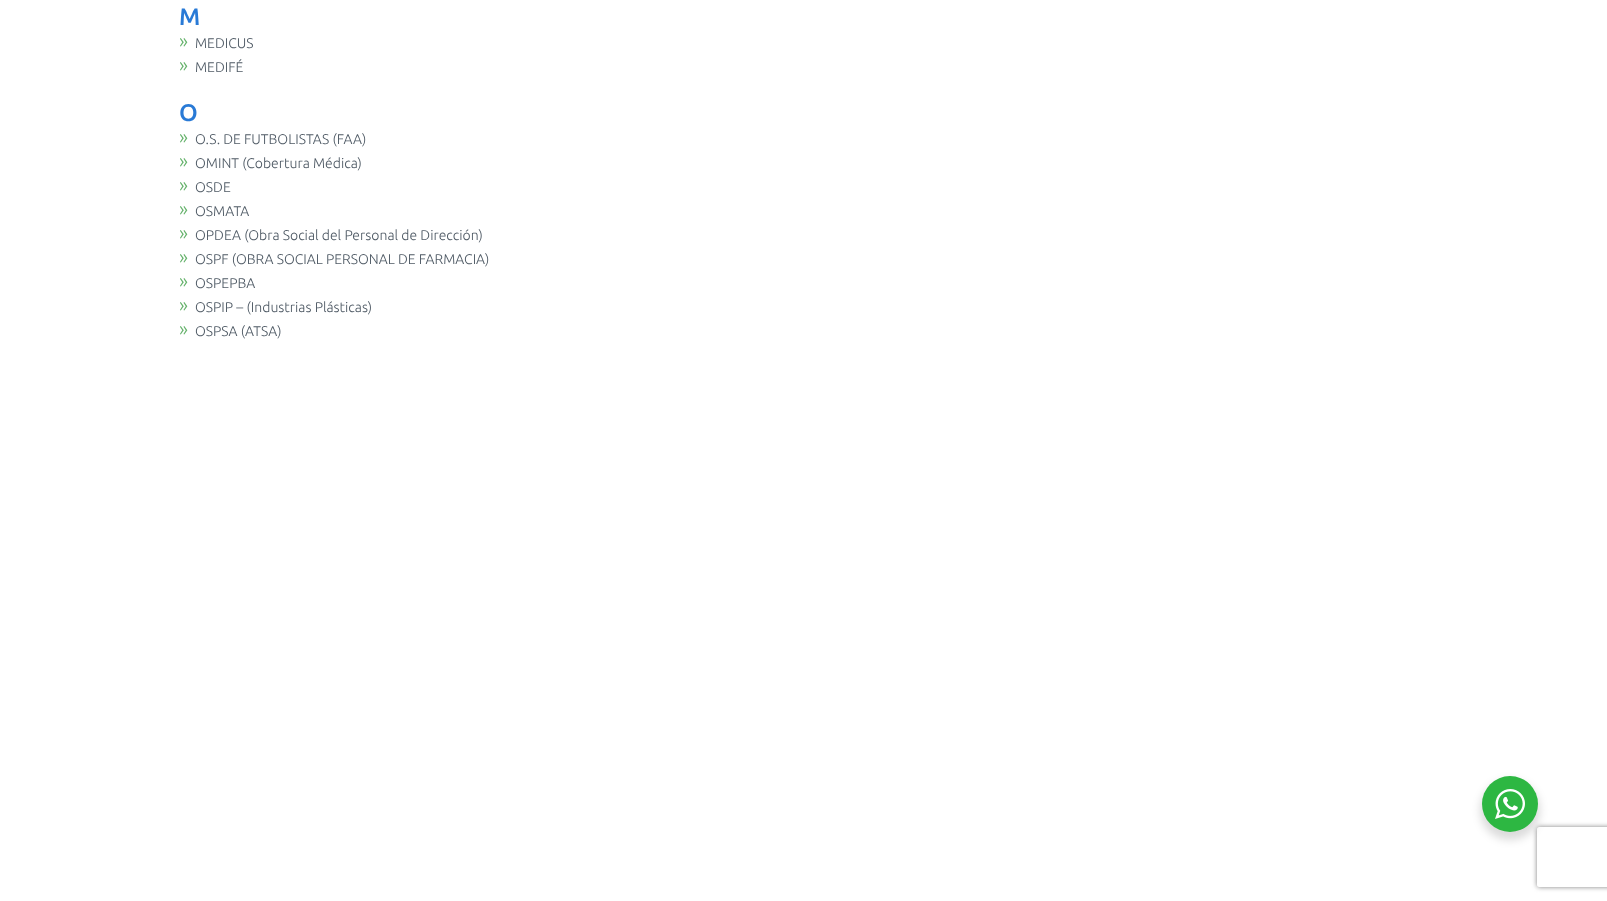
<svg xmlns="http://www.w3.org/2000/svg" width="1607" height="901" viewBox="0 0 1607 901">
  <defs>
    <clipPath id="clip1"><path d="M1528 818H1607V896H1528ZM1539 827H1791C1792 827 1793 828 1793 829V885C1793 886 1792 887 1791 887H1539C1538 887 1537 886 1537 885V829C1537 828 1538 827 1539 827Z" clip-rule="evenodd"/></clipPath>
  </defs>
  <rect width="100%" height="100%" fill="#fff"/>
  <rect x="1480" y="780" width="60" height="60" rx="30" fill="#00000024" filter="blur(4px)"/>
  <g clip-path="url(#clip1)">
    <rect x="1537" y="827" width="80" height="60" rx="2" fill="#808080" filter="blur(2.5px)"/>
  </g>
  <circle cx="1510" cy="804" r="28" fill="#2db742"/>
  <image x="1495" y="789" width="30" height="30" href="img/1.png"/>
  <text x="179" y="25" font-family="Ubuntu" font-size="24" font-weight="500" fill="#297ad6">M</text>
  <text x="179" y="48" font-family="Ubuntu" font-size="20" font-weight="300" fill="#65b26b">»</text>
  <text x="195" y="48" font-family="Ubuntu" font-size="14" font-weight="300" fill="#4f5a65">MEDICUS</text>
  <text x="179" y="72" font-family="Ubuntu" font-size="20" font-weight="300" fill="#65b26b">»</text>
  <text x="195" y="72" font-family="Ubuntu" font-size="14" font-weight="300" fill="#4f5a65">MEDIFÉ</text>
  <text x="179" y="121" font-family="Ubuntu" font-size="24" font-weight="500" fill="#297ad6">O</text>
  <text x="179" y="144" font-family="Ubuntu" font-size="20" font-weight="300" fill="#65b26b">»</text>
  <text x="195" y="144" font-family="Ubuntu" font-size="14" font-weight="300" fill="#4f5a65">O.S. DE FUTBOLISTAS (FAA)</text>
  <text x="179" y="168" font-family="Ubuntu" font-size="20" font-weight="300" fill="#65b26b">»</text>
  <text x="195" y="168" font-family="Ubuntu" font-size="14" font-weight="300" fill="#4f5a65">OMINT (Cobertura Médica)</text>
  <text x="179" y="192" font-family="Ubuntu" font-size="20" font-weight="300" fill="#65b26b">»</text>
  <text x="195" y="192" font-family="Ubuntu" font-size="14" font-weight="300" fill="#4f5a65">OSDE</text>
  <text x="179" y="216" font-family="Ubuntu" font-size="20" font-weight="300" fill="#65b26b">»</text>
  <text x="195" y="216" font-family="Ubuntu" font-size="14" font-weight="300" fill="#4f5a65">OSMATA</text>
  <text x="179" y="240" font-family="Ubuntu" font-size="20" font-weight="300" fill="#65b26b">»</text>
  <text x="195" y="240" font-family="Ubuntu" font-size="14" font-weight="300" fill="#4f5a65">OPDEA (Obra Social del Personal de Dirección)</text>
  <text x="179" y="264" font-family="Ubuntu" font-size="20" font-weight="300" fill="#65b26b">»</text>
  <text x="195" y="264" font-family="Ubuntu" font-size="14" font-weight="300" fill="#4f5a65">OSPF (OBRA SOCIAL PERSONAL DE FARMACIA)</text>
  <text x="179" y="288" font-family="Ubuntu" font-size="20" font-weight="300" fill="#65b26b">»</text>
  <text x="195" y="288" font-family="Ubuntu" font-size="14" font-weight="300" fill="#4f5a65">OSPEPBA</text>
  <text x="179" y="312" font-family="Ubuntu" font-size="20" font-weight="300" fill="#65b26b">»</text>
  <text x="195" y="312" font-family="Ubuntu" font-size="14" font-weight="300" fill="#4f5a65">OSPIP – (Industrias Plásticas)</text>
  <text x="179" y="336" font-family="Ubuntu" font-size="20" font-weight="300" fill="#65b26b">»</text>
  <text x="195" y="336" font-family="Ubuntu" font-size="14" font-weight="300" fill="#4f5a65">OSPSA (ATSA)</text>
</svg>
